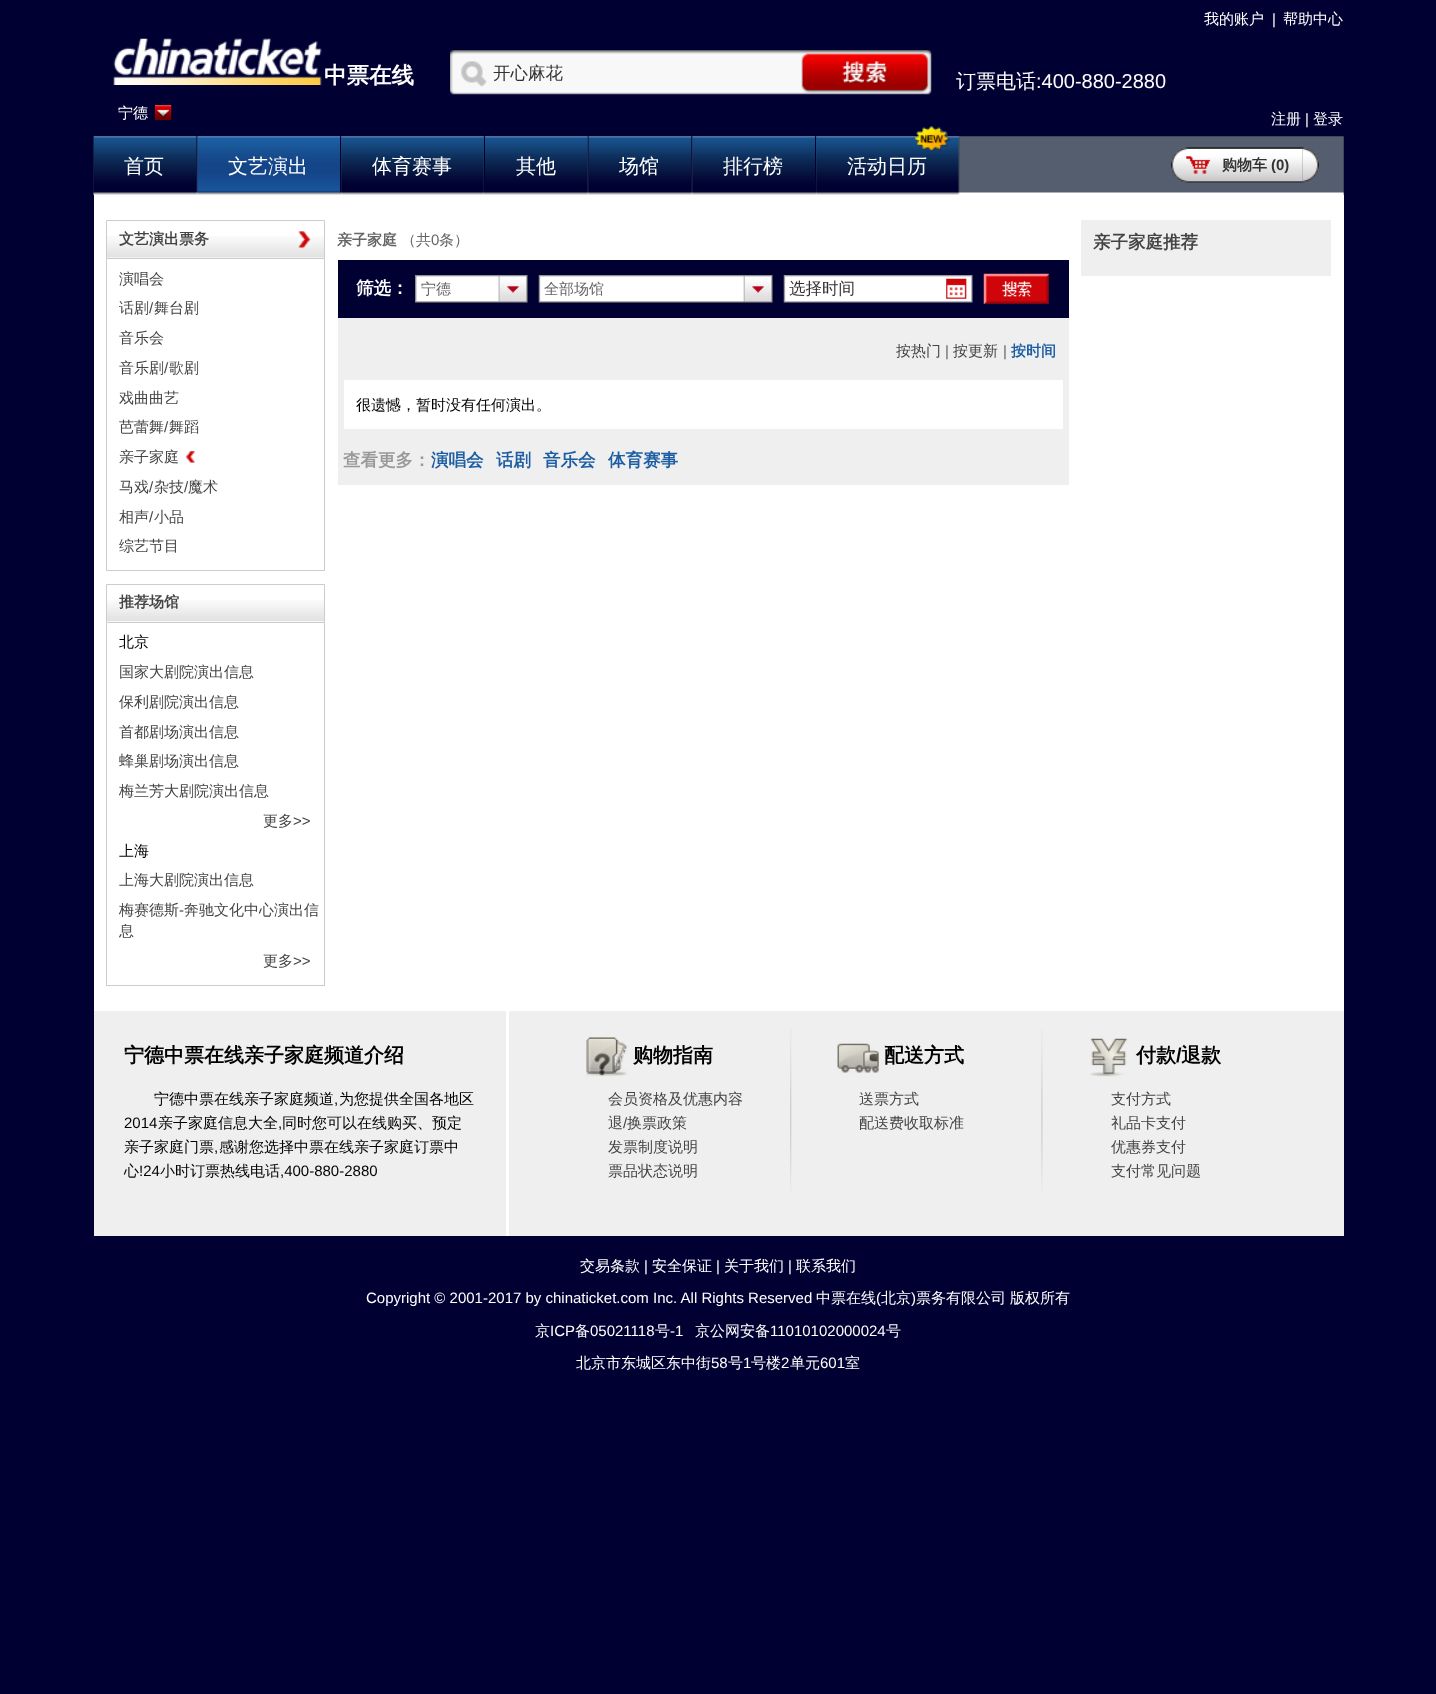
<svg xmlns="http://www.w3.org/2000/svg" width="1436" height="1694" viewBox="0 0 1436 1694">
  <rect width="100%" height="100%" fill="#003"/>
  <path d="M94 195h1250v816H94z" fill="#fff"/>
  <image x="113" y="38" width="209" height="47" href="img/1.png"/>
  <image x="450" y="50" width="351" height="45" href="img/2.png"/>
  <image x="801" y="50" width="131" height="45" href="img/3.png"/>
  <image x="155" y="105" width="17" height="15" href="img/4.png"/>
  <image x="93" y="136" width="1251" height="59" href="img/5.png"/>
  <image x="196" y="136" width="2" height="59" href="img/7.png"/>
  <image x="93" y="136" width="104" height="59" href="img/6.png"/>
  <image x="197" y="136" width="143" height="59" href="img/8.png"/>
  <image x="340" y="136" width="2" height="59" href="img/9.png"/>
  <image x="483" y="136" width="2" height="59" href="img/11.png"/>
  <image x="341" y="136" width="143" height="59" href="img/10.png"/>
  <image x="587" y="136" width="2" height="59" href="img/13.png"/>
  <image x="485" y="136" width="103" height="59" href="img/12.png"/>
  <image x="588" y="136" width="104" height="59" href="img/14.png"/>
  <image x="691" y="136" width="2" height="59" href="img/15.png"/>
  <image x="692" y="136" width="123" height="59" href="img/16.png"/>
  <image x="815" y="136" width="2" height="59" href="img/9.png"/>
  <image x="816" y="136" width="143" height="59" href="img/17.png"/>
  <image x="915" y="126" width="35" height="26" href="img/18.png"/>
  <image x="958" y="136" width="2" height="59" href="img/19.png"/>
  <image x="1171" y="147" width="39" height="36" href="img/20.png"/>
  <image x="1302" y="147" width="17" height="36" href="img/22.png"/>
  <image x="1210" y="147" width="93" height="36" href="img/21.png"/>
  <image x="107" y="236" width="217" height="22" href="img/23.png"/>
  <path d="M106.5 220.5h218v38H106.5z" fill="none" stroke="#ccc"/>
  <image x="298" y="231" width="13" height="17" href="img/24.png"/>
  <path d="M324 259h1v312H324z" fill="#ccc"/>
  <path d="M106 570h219v1H106z" fill="#ccc"/>
  <path d="M106 259h1v312H106z" fill="#ccc"/>
  <image x="186" y="451" width="9" height="12" href="img/25.png"/>
  <image x="107" y="600" width="217" height="22" href="img/26.png"/>
  <path d="M106.5 584.5h218v38H106.5z" fill="none" stroke="#ccc"/>
  <path d="M324 623h1v363H324z" fill="#ccc"/>
  <path d="M106 985h219v1H106z" fill="#ccc"/>
  <path d="M106 623h1v363H106z" fill="#ccc"/>
  <path d="M338 260h731v58H338z" fill="#003"/>
  <image x="415" y="275" width="113" height="28" href="img/27.png"/>
  <image x="538" y="275" width="235" height="28" href="img/28.png"/>
  <image x="783" y="275" width="190" height="28" href="img/29.png"/>
  <image x="983" y="273" width="66" height="31" href="img/30.png"/>
  <path d="M338 318h731v56H338z" fill="#efefef"/>
  <path d="M341 377h725v55H341z" fill="none" stroke="#efefef" stroke-width="6"/>
  <path d="M338 435h731v50H338z" fill="#efefef"/>
  <path d="M1081 220h250v56H1081z" fill="#efefef"/>
  <path d="M94 1011h1250v225H94z" fill="#efefef"/>
  <path d="M506 1011h3v225H506z" fill="#fff"/>
  <image x="586" y="1037" width="42" height="40" href="img/31.png"/>
  <image x="790" y="1029" width="2" height="163" href="img/32.png"/>
  <image x="837" y="1043" width="42" height="31" href="img/33.png"/>
  <image x="1041" y="1029" width="2" height="162" href="img/34.png"/>
  <image x="1090" y="1038" width="38" height="39" href="img/35.png"/>
  <text x="1204" y="24" font-family="WenQuanYi Zen Hei" font-size="15" font-weight="500" fill="#fff">我的账户</text>
  <text x="1272" y="24" font-family="Liberation Sans" font-size="15" fill="#fff">|</text>
  <text x="1283" y="24" font-family="WenQuanYi Zen Hei" font-size="15" font-weight="500" fill="#fff">帮助中心</text>
  <text x="324" y="83" font-family="WenQuanYi Zen Hei" font-size="22.5" font-weight="bold" fill="#fff">中票在线</text>
  <text x="493" y="79" font-family="WenQuanYi Zen Hei" font-size="17.5" font-weight="500" fill="#333">开心麻花</text>
  <text x="956" y="88" font-family="WenQuanYi Zen Hei" font-size="20" font-weight="500" fill="#fff">订票电话</text>
  <text x="1036" y="88" font-family="Liberation Sans" font-size="20" fill="#fff">:400-880-2880</text>
  <g font-family="WenQuanYi Zen Hei" font-size="15" font-weight="500" fill="#fff">
    <text x="118" y="118">宁德</text>
    <text x="1271" y="124">注册</text>
  </g>
  <text x="1305" y="124" font-family="Liberation Sans" font-size="15" fill="#fff">|</text>
  <text x="1313" y="124" font-family="WenQuanYi Zen Hei" font-size="15" font-weight="500" fill="#fff">登录</text>
  <g font-family="WenQuanYi Zen Hei" font-size="20" font-weight="500" fill="#fff">
    <text x="124" y="173">首页</text>
    <text x="228" y="173">文艺演出</text>
    <text x="372" y="173">体育赛事</text>
    <text x="516" y="173">其他</text>
    <text x="619" y="173">场馆</text>
    <text x="723" y="173">排行榜</text>
    <text x="847" y="173">活动日历</text>
  </g>
  <text x="1222" y="170" font-family="WenQuanYi Zen Hei" font-size="15" font-weight="bold" fill="#333">购物车</text>
  <text x="1271" y="170" font-family="Liberation Sans" font-size="15" font-weight="bold" fill="#333">(0)</text>
  <text x="119" y="244" font-family="WenQuanYi Zen Hei" font-size="15" font-weight="bold" fill="#444">文艺演出票务</text>
  <g font-family="WenQuanYi Zen Hei" font-size="15" font-weight="500" fill="#444">
    <text x="119" y="284">演唱会</text>
    <text x="119" y="313">话剧</text>
  </g>
  <text x="149" y="313" font-family="Liberation Sans" font-size="15" fill="#444">/</text>
  <g font-family="WenQuanYi Zen Hei" font-size="15" font-weight="500" fill="#444">
    <text x="154" y="313">舞台剧</text>
    <text x="119" y="343">音乐会</text>
    <text x="119" y="373">音乐剧</text>
  </g>
  <text x="164" y="373" font-family="Liberation Sans" font-size="15" fill="#444">/</text>
  <g font-family="WenQuanYi Zen Hei" font-size="15" font-weight="500" fill="#444">
    <text x="169" y="373">歌剧</text>
    <text x="119" y="403">戏曲曲艺</text>
    <text x="119" y="432">芭蕾舞</text>
  </g>
  <text x="164" y="432" font-family="Liberation Sans" font-size="15" fill="#444">/</text>
  <g font-family="WenQuanYi Zen Hei" font-size="15" font-weight="500" fill="#444">
    <text x="169" y="432">舞蹈</text>
    <text x="119" y="462">亲子家庭</text>
    <text x="119" y="492">马戏</text>
  </g>
  <text x="149" y="492" font-family="Liberation Sans" font-size="15" fill="#444">/</text>
  <text x="154" y="492" font-family="WenQuanYi Zen Hei" font-size="15" font-weight="500" fill="#444">杂技</text>
  <text x="184" y="492" font-family="Liberation Sans" font-size="15" fill="#444">/</text>
  <g font-family="WenQuanYi Zen Hei" font-size="15" font-weight="500" fill="#444">
    <text x="188" y="492">魔术</text>
    <text x="119" y="522">相声</text>
  </g>
  <text x="149" y="522" font-family="Liberation Sans" font-size="15" fill="#444">/</text>
  <g font-family="WenQuanYi Zen Hei" font-size="15" font-weight="500" fill="#444">
    <text x="154" y="522">小品</text>
    <text x="119" y="551">综艺节目</text>
  </g>
  <text x="119" y="607" font-family="WenQuanYi Zen Hei" font-size="15" font-weight="bold" fill="#444">推荐场馆</text>
  <text x="119" y="647" font-family="WenQuanYi Zen Hei" font-size="15" font-weight="500" fill="#000">北京</text>
  <g font-family="WenQuanYi Zen Hei" font-size="15" font-weight="500" fill="#444">
    <text x="119" y="677">国家大剧院演出信息</text>
    <text x="119" y="707">保利剧院演出信息</text>
    <text x="119" y="737">首都剧场演出信息</text>
    <text x="119" y="766">蜂巢剧场演出信息</text>
    <text x="119" y="796">梅兰芳大剧院演出信息</text>
    <text x="263" y="826">更多</text>
  </g>
  <text x="293" y="826" font-family="Liberation Sans" font-size="15" fill="#444">&gt;&gt;</text>
  <text x="119" y="856" font-family="WenQuanYi Zen Hei" font-size="15" font-weight="500" fill="#000">上海</text>
  <g font-family="WenQuanYi Zen Hei" font-size="15" font-weight="500" fill="#444">
    <text x="119" y="885">上海大剧院演出信息</text>
    <text x="119" y="915">梅赛德斯</text>
  </g>
  <text x="179" y="915" font-family="Liberation Sans" font-size="15" fill="#444">-</text>
  <g font-family="WenQuanYi Zen Hei" font-size="15" font-weight="500" fill="#444">
    <text x="184" y="915">奔驰文化中心演出信</text>
    <text x="119" y="936">息</text>
    <text x="263" y="966">更多</text>
  </g>
  <text x="293" y="966" font-family="Liberation Sans" font-size="15" fill="#444">&gt;&gt;</text>
  <text x="337" y="245" font-family="WenQuanYi Zen Hei" font-size="15" font-weight="bold" fill="#666">亲子家庭</text>
  <text x="401" y="245" font-family="WenQuanYi Zen Hei" font-size="15" font-weight="500" fill="#666">（共</text>
  <text x="431" y="245" font-family="Liberation Sans" font-size="15" fill="#666">0</text>
  <text x="439" y="245" font-family="WenQuanYi Zen Hei" font-size="15" font-weight="500" fill="#666">条）</text>
  <text x="356" y="294" font-family="WenQuanYi Zen Hei" font-size="17.5" font-weight="bold" fill="#fff">筛选：</text>
  <g font-family="WenQuanYi Zen Hei" font-size="15" font-weight="500" fill="#666">
    <text x="421" y="294">宁德</text>
    <text x="544" y="294">全部场馆</text>
  </g>
  <text x="789" y="294" font-family="WenQuanYi Zen Hei" font-size="16.5" font-weight="500" fill="#333">选择时间</text>
  <text x="896" y="356" font-family="WenQuanYi Zen Hei" font-size="15" font-weight="500" fill="#444">按热门</text>
  <text x="945" y="356" font-family="Liberation Sans" font-size="15" fill="#666">|</text>
  <text x="953" y="356" font-family="WenQuanYi Zen Hei" font-size="15" font-weight="500" fill="#444">按更新</text>
  <text x="1003" y="356" font-family="Liberation Sans" font-size="15" fill="#666">|</text>
  <text x="1011" y="356" font-family="WenQuanYi Zen Hei" font-size="15" font-weight="bold" fill="#1c5da3">按时间</text>
  <text x="356" y="410" font-family="WenQuanYi Zen Hei" font-size="15" font-weight="500" fill="#000">很遗憾，暂时没有任何演出。</text>
  <text x="343" y="466" font-family="WenQuanYi Zen Hei" font-size="17.5" font-weight="bold" fill="#999">查看更多：</text>
  <g font-family="WenQuanYi Zen Hei" font-size="17.5" font-weight="bold" fill="#1c5da3">
    <text x="431" y="466">演唱会</text>
    <text x="496" y="466">话剧</text>
    <text x="543" y="466">音乐会</text>
    <text x="608" y="466">体育赛事</text>
  </g>
  <text x="1093" y="248" font-family="WenQuanYi Zen Hei" font-size="17.5" font-weight="bold" fill="#444">亲子家庭推荐</text>
  <text x="124" y="1062" font-family="WenQuanYi Zen Hei" font-size="20" font-weight="bold" fill="#000">宁德中票在线亲子家庭频道介绍</text>
  <text x="154" y="1104" font-family="WenQuanYi Zen Hei" font-size="15" font-weight="500" fill="#000">宁德中票在线亲子家庭频道</text>
  <text x="334" y="1104" font-family="Liberation Sans" font-size="15" fill="#000">,</text>
  <text x="339" y="1104" font-family="WenQuanYi Zen Hei" font-size="15" font-weight="500" fill="#000">为您提供全国各地区</text>
  <text x="124" y="1128" font-family="Liberation Sans" font-size="15" fill="#000">2014</text>
  <text x="158" y="1128" font-family="WenQuanYi Zen Hei" font-size="15" font-weight="500" fill="#000">亲子家庭信息大全</text>
  <text x="278" y="1128" font-family="Liberation Sans" font-size="15" fill="#000">,</text>
  <g font-family="WenQuanYi Zen Hei" font-size="15" font-weight="500" fill="#000">
    <text x="282" y="1128">同时您可以在线购买、预定</text>
    <text x="124" y="1152">亲子家庭门票</text>
  </g>
  <text x="214" y="1152" font-family="Liberation Sans" font-size="15" fill="#000">,</text>
  <g font-family="WenQuanYi Zen Hei" font-size="15" font-weight="500" fill="#000">
    <text x="219" y="1152">感谢您选择中票在线亲子家庭订票中</text>
    <text x="124" y="1176">心</text>
  </g>
  <text x="139" y="1176" font-family="Liberation Sans" font-size="15" fill="#000">!24</text>
  <text x="160" y="1176" font-family="WenQuanYi Zen Hei" font-size="15" font-weight="500" fill="#000">小时订票热线电话</text>
  <text x="280" y="1176" font-family="Liberation Sans" font-size="15" fill="#000">,400-880-2880</text>
  <text x="633" y="1062" font-family="WenQuanYi Zen Hei" font-size="20" font-weight="bold" fill="#000">购物指南</text>
  <g font-family="WenQuanYi Zen Hei" font-size="15" font-weight="500" fill="#444">
    <text x="608" y="1104">会员资格及优惠内容</text>
    <text x="608" y="1128">退</text>
  </g>
  <text x="623" y="1128" font-family="Liberation Sans" font-size="15" fill="#444">/</text>
  <g font-family="WenQuanYi Zen Hei" font-size="15" font-weight="500" fill="#444">
    <text x="627" y="1128">换票政策</text>
    <text x="608" y="1152">发票制度说明</text>
    <text x="608" y="1176">票品状态说明</text>
  </g>
  <text x="884" y="1062" font-family="WenQuanYi Zen Hei" font-size="20" font-weight="bold" fill="#000">配送方式</text>
  <g font-family="WenQuanYi Zen Hei" font-size="15" font-weight="500" fill="#444">
    <text x="859" y="1104">送票方式</text>
    <text x="859" y="1128">配送费收取标准</text>
  </g>
  <text x="1136" y="1062" font-family="WenQuanYi Zen Hei" font-size="20" font-weight="bold" fill="#000">付款</text>
  <text x="1176" y="1062" font-family="Liberation Sans" font-size="20" font-weight="bold" fill="#000">/</text>
  <text x="1181" y="1062" font-family="WenQuanYi Zen Hei" font-size="20" font-weight="bold" fill="#000">退款</text>
  <g font-family="WenQuanYi Zen Hei" font-size="15" font-weight="500" fill="#444">
    <text x="1111" y="1104">支付方式</text>
    <text x="1111" y="1128">礼品卡支付</text>
    <text x="1111" y="1152">优惠券支付</text>
    <text x="1111" y="1176">支付常见问题</text>
  </g>
  <text x="580" y="1271" font-family="WenQuanYi Zen Hei" font-size="15" font-weight="500" fill="#fff">交易条款</text>
  <text x="644" y="1271" font-family="Liberation Sans" font-size="15" fill="#fff">|</text>
  <text x="652" y="1271" font-family="WenQuanYi Zen Hei" font-size="15" font-weight="500" fill="#fff">安全保证</text>
  <text x="716" y="1271" font-family="Liberation Sans" font-size="15" fill="#fff">|</text>
  <text x="724" y="1271" font-family="WenQuanYi Zen Hei" font-size="15" font-weight="500" fill="#fff">关于我们</text>
  <text x="788" y="1271" font-family="Liberation Sans" font-size="15" fill="#fff">|</text>
  <text x="796" y="1271" font-family="WenQuanYi Zen Hei" font-size="15" font-weight="500" fill="#fff">联系我们</text>
  <text x="366" y="1303" font-family="Liberation Sans" font-size="15" fill="#fff">Copyright © 2001-2017 by chinaticket.com Inc. All Rights Reserved</text>
  <text x="816" y="1303" font-family="WenQuanYi Zen Hei" font-size="15" font-weight="500" fill="#fff">中票在线</text>
  <text x="876" y="1303" font-family="Liberation Sans" font-size="15" fill="#fff">(</text>
  <text x="881" y="1303" font-family="WenQuanYi Zen Hei" font-size="15" font-weight="500" fill="#fff">北京</text>
  <text x="911" y="1303" font-family="Liberation Sans" font-size="15" fill="#fff">)</text>
  <g font-family="WenQuanYi Zen Hei" font-size="15" font-weight="500" fill="#fff">
    <text x="916" y="1303">票务有限公司</text>
    <text x="1010" y="1303">版权所有</text>
    <text x="535" y="1336">京</text>
  </g>
  <text x="550" y="1336" font-family="Liberation Sans" font-size="15" fill="#fff">ICP</text>
  <text x="575" y="1336" font-family="WenQuanYi Zen Hei" font-size="15" font-weight="500" fill="#fff">备</text>
  <text x="590" y="1336" font-family="Liberation Sans" font-size="15" fill="#fff">05021118</text>
  <text x="655" y="1336" font-family="WenQuanYi Zen Hei" font-size="15" font-weight="500" fill="#fff">号</text>
  <text x="670" y="1336" font-family="Liberation Sans" font-size="15" fill="#fff">-1</text>
  <text x="695" y="1336" font-family="WenQuanYi Zen Hei" font-size="15" font-weight="500" fill="#fff">京公网安备</text>
  <text x="770" y="1336" font-family="Liberation Sans" font-size="15" fill="#fff">11010102000024</text>
  <g font-family="WenQuanYi Zen Hei" font-size="15" font-weight="500" fill="#fff">
    <text x="886" y="1336">号</text>
    <text x="576" y="1368">北京市东城区东中街</text>
  </g>
  <text x="711" y="1368" font-family="Liberation Sans" font-size="15" fill="#fff">58</text>
  <text x="728" y="1368" font-family="WenQuanYi Zen Hei" font-size="15" font-weight="500" fill="#fff">号</text>
  <text x="743" y="1368" font-family="Liberation Sans" font-size="15" fill="#fff">1</text>
  <text x="751" y="1368" font-family="WenQuanYi Zen Hei" font-size="15" font-weight="500" fill="#fff">号楼</text>
  <text x="781" y="1368" font-family="Liberation Sans" font-size="15" fill="#fff">2</text>
  <text x="790" y="1368" font-family="WenQuanYi Zen Hei" font-size="15" font-weight="500" fill="#fff">单元</text>
  <text x="820" y="1368" font-family="Liberation Sans" font-size="15" fill="#fff">601</text>
  <text x="845" y="1368" font-family="WenQuanYi Zen Hei" font-size="15" font-weight="500" fill="#fff">室</text>
</svg>
